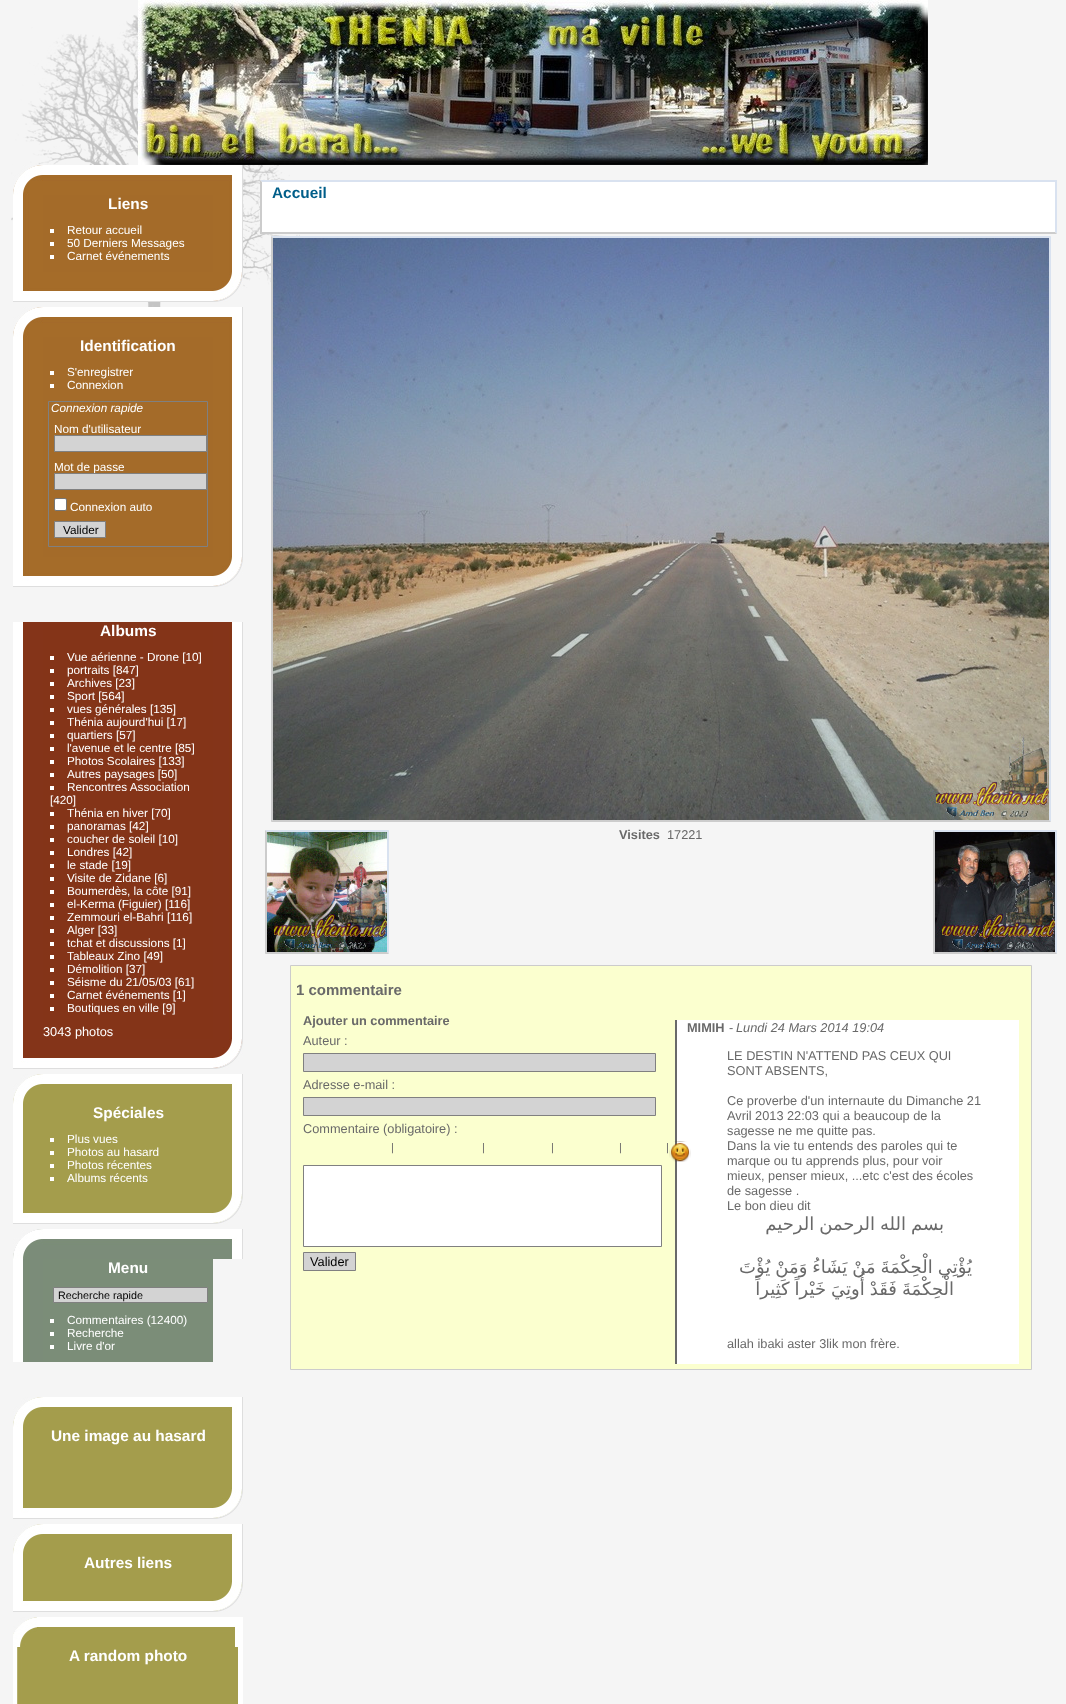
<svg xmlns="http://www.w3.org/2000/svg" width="1066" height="1704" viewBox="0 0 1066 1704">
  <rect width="100%" height="100%" fill="#f5f5f5"/>
  <image x="11" y="15" width="289" height="292" href="img/1.png"/>
  <image x="138" y="0" width="790" height="165" href="img/2.png"/>
  <image x="13" y="165" width="30" height="30" href="img/3.png"/>
  <image x="43" y="165" width="170" height="30" href="img/4.png"/>
  <image x="213" y="165" width="30" height="30" href="img/5.png"/>
  <image x="13" y="195" width="30" height="77" href="img/6.png"/>
  <path d="M43 195h170v77H43z" fill="#a46b29"/>
  <path d="M50 229h4v4H50z" fill="#fff"/>
  <path d="M50 242h4v4H50z" fill="#fff"/>
  <path d="M50 255h4v4H50z" fill="#fff"/>
  <image x="213" y="195" width="30" height="77" href="img/7.png"/>
  <image x="13" y="272" width="30" height="30" href="img/8.png"/>
  <image x="43" y="272" width="170" height="30" href="img/9.png"/>
  <image x="213" y="272" width="30" height="30" href="img/10.png"/>
  <image x="13" y="307" width="30" height="30" href="img/3.png"/>
  <image x="43" y="307" width="170" height="30" href="img/4.png"/>
  <image x="213" y="307" width="30" height="30" href="img/5.png"/>
  <image x="13" y="337" width="30" height="220" href="img/11.png"/>
  <path d="M43 337h170v220H43z" fill="#a46b29"/>
  <path d="M50 371h4v4H50z" fill="#fff"/>
  <path d="M50 384h4v4H50z" fill="#fff"/>
  <path d="M48.5 401.5h159v145H48.5z" fill="none" stroke="#808080"/>
  <path d="M54.5 435.5h152v16H54.5z" fill="#d3d3d3" stroke="#808080"/>
  <rect x="54.5" y="498.5" width="12" height="12" rx="1.5" fill="#fff" stroke="#767676"/>
  <path d="M54.5 521.5h51v16H54.5z" fill="#d3d3d3" stroke="#808080"/>
  <image x="213" y="337" width="30" height="220" href="img/12.png"/>
  <image x="13" y="557" width="30" height="30" href="img/8.png"/>
  <image x="43" y="557" width="170" height="30" href="img/9.png"/>
  <image x="213" y="557" width="30" height="30" href="img/10.png"/>
  <image x="13" y="622" width="30" height="417" href="img/13.png"/>
  <path d="M43 622h170v417H43z" fill="#843418"/>
  <path d="M50 656h4v4H50z" fill="#fff"/>
  <path d="M50 669h4v4H50z" fill="#fff"/>
  <path d="M50 682h4v4H50z" fill="#fff"/>
  <path d="M50 695h4v4H50z" fill="#fff"/>
  <path d="M50 708h4v4H50z" fill="#fff"/>
  <path d="M50 721h4v4H50z" fill="#fff"/>
  <path d="M50 734h4v4H50z" fill="#fff"/>
  <path d="M50 747h4v4H50z" fill="#fff"/>
  <path d="M50 760h4v4H50z" fill="#fff"/>
  <path d="M50 773h4v4H50z" fill="#fff"/>
  <path d="M50 786h4v4H50z" fill="#fff"/>
  <path d="M50 812h4v4H50z" fill="#fff"/>
  <path d="M50 825h4v4H50z" fill="#fff"/>
  <path d="M50 838h4v4H50z" fill="#fff"/>
  <path d="M50 851h4v4H50z" fill="#fff"/>
  <path d="M50 864h4v4H50z" fill="#fff"/>
  <path d="M50 877h4v4H50z" fill="#fff"/>
  <path d="M50 890h4v4H50z" fill="#fff"/>
  <path d="M50 903h4v4H50z" fill="#fff"/>
  <path d="M50 916h4v4H50z" fill="#fff"/>
  <path d="M50 929h4v4H50z" fill="#fff"/>
  <path d="M50 942h4v4H50z" fill="#fff"/>
  <path d="M50 955h4v4H50z" fill="#fff"/>
  <path d="M50 968h4v4H50z" fill="#fff"/>
  <path d="M50 981h4v4H50z" fill="#fff"/>
  <path d="M50 994h4v4H50z" fill="#fff"/>
  <path d="M50 1007h4v4H50z" fill="#fff"/>
  <image x="213" y="622" width="30" height="417" href="img/14.png"/>
  <image x="13" y="1039" width="30" height="30" href="img/15.png"/>
  <image x="43" y="1039" width="170" height="30" href="img/16.png"/>
  <image x="213" y="1039" width="30" height="30" href="img/17.png"/>
  <image x="13" y="1074" width="30" height="30" href="img/18.png"/>
  <image x="43" y="1074" width="170" height="30" href="img/19.png"/>
  <image x="213" y="1074" width="30" height="30" href="img/20.png"/>
  <image x="13" y="1104" width="30" height="90" href="img/21.png"/>
  <path d="M43 1104h170v90H43z" fill="#a49d4c"/>
  <path d="M50 1138h4v4H50z" fill="#fff"/>
  <path d="M50 1151h4v4H50z" fill="#fff"/>
  <path d="M50 1164h4v4H50z" fill="#fff"/>
  <path d="M50 1177h4v4H50z" fill="#fff"/>
  <image x="213" y="1104" width="30" height="90" href="img/22.png"/>
  <image x="13" y="1194" width="30" height="30" href="img/23.png"/>
  <image x="43" y="1194" width="170" height="30" href="img/24.png"/>
  <image x="213" y="1194" width="30" height="30" href="img/25.png"/>
  <image x="13" y="1229" width="30" height="30" href="img/26.png"/>
  <image x="43" y="1229" width="170" height="30" href="img/27.png"/>
  <image x="213" y="1229" width="30" height="30" href="img/28.png"/>
  <image x="13" y="1259" width="30" height="103" href="img/29.png"/>
  <path d="M43 1259h170v103H43z" fill="#7b8d78"/>
  <path d="M53.5 1287.5h154v15H53.5z" fill="#d3d3d3" stroke="#808080"/>
  <path d="M50 1319h4v4H50z" fill="#fff"/>
  <path d="M50 1332h4v4H50z" fill="#fff"/>
  <path d="M50 1345h4v4H50z" fill="#fff"/>
  <image x="13" y="1397" width="30" height="30" href="img/18.png"/>
  <image x="43" y="1397" width="170" height="30" href="img/19.png"/>
  <image x="213" y="1397" width="30" height="30" href="img/20.png"/>
  <image x="13" y="1427" width="30" height="62" href="img/30.png"/>
  <path d="M43 1427h170v62H43z" fill="#a49d4c"/>
  <image x="213" y="1427" width="30" height="62" href="img/31.png"/>
  <image x="13" y="1489" width="30" height="30" href="img/23.png"/>
  <image x="43" y="1489" width="170" height="30" href="img/24.png"/>
  <image x="213" y="1489" width="30" height="30" href="img/25.png"/>
  <image x="13" y="1524" width="30" height="30" href="img/18.png"/>
  <image x="43" y="1524" width="170" height="30" href="img/19.png"/>
  <image x="213" y="1524" width="30" height="30" href="img/20.png"/>
  <image x="13" y="1554" width="30" height="28" href="img/32.png"/>
  <path d="M43 1554h170v28H43z" fill="#a49d4c"/>
  <image x="213" y="1554" width="30" height="28" href="img/33.png"/>
  <image x="13" y="1582" width="30" height="30" href="img/23.png"/>
  <image x="43" y="1582" width="170" height="30" href="img/24.png"/>
  <image x="213" y="1582" width="30" height="30" href="img/25.png"/>
  <image x="13" y="1617" width="24" height="30" href="img/34.png"/>
  <image x="37" y="1617" width="182" height="30" href="img/35.png"/>
  <image x="219" y="1617" width="24" height="30" href="img/36.png"/>
  <image x="13" y="1647" width="24" height="57" href="img/37.png"/>
  <path d="M37 1647h182v57H37z" fill="#a49d4c"/>
  <image x="219" y="1647" width="24" height="57" href="img/38.png"/>
  <path d="M260 180h795v24H260z" fill="#fff"/>
  <path d="M260 180H1057L1055 182H262Z" fill="#d9e2f0"/>
  <path d="M1055 180h2v24H1055z" fill="#d9e2f0"/>
  <path d="M260 204V180L262 182V204Z" fill="#ccc"/>
  <path d="M262 204h795v30H262z" fill="#fff"/>
  <path d="M1057 204V234L1055 232V204Z" fill="#d9e2f0"/>
  <path d="M1057 234H260L262 232H1055Z" fill="#ccc"/>
  <path d="M260 204h2v30H260z" fill="#ccc"/>
  <path d="M271 236H1051L1049 238H273Z" fill="#d9e2f0"/>
  <path d="M1051 236V822L1049 820V238Z" fill="#d9e2f0"/>
  <path d="M1051 822H271L273 820H1049Z" fill="#ccc"/>
  <path d="M271 822V236L273 238V820Z" fill="#ccc"/>
  <image x="273" y="238" width="776" height="582" href="img/39.png"/>
  <path d="M265 830H389L387 832H267Z" fill="#d9e2f0"/>
  <path d="M389 830V954L387 952V832Z" fill="#d9e2f0"/>
  <path d="M389 954H265L267 952H387Z" fill="#ccc"/>
  <path d="M265 954V830L267 832V952Z" fill="#ccc"/>
  <image x="267" y="832" width="120" height="120" href="img/40.png"/>
  <path d="M933 830H1057L1055 832H935Z" fill="#d9e2f0"/>
  <path d="M1057 830V954L1055 952V832Z" fill="#d9e2f0"/>
  <path d="M1057 954H933L935 952H1055Z" fill="#ccc"/>
  <path d="M933 954V830L935 832V952Z" fill="#ccc"/>
  <image x="935" y="832" width="120" height="120" href="img/41.png"/>
  <path d="M290.5 965.5h741v404H290.5z" fill="#fbffcf" stroke="#ccc"/>
  <path d="M303.5 1053.5h352v18H303.5z" fill="#d3d3d3" stroke="#808080"/>
  <path d="M303.5 1097.5h352v18H303.5z" fill="#d3d3d3" stroke="#808080"/>
  <path d="M677 1020h342v344H677z" fill="#fff"/>
  <path d="M675 1020h2v344H675z" fill="#696969"/>
  <image x="669" y="1141" width="22" height="21" href="img/42.png"/>
  <path d="M303.5 1165.5h358v81H303.5z" fill="#fff" stroke="#808080"/>
  <path d="M303.5 1252.5h52v18H303.5z" fill="#d3d3d3" stroke="#808080"/>
  <text x="108" y="209" font-family="Liberation Sans" font-size="15.4" font-weight="bold" fill="#fff">Liens</text>
  <g font-family="Liberation Sans" font-size="11.75" fill="#fff">
    <text x="67" y="234">Retour accueil</text>
    <text x="67" y="247">50 Derniers Messages</text>
    <text x="67" y="260">Carnet événements</text>
  </g>
  <text x="80" y="351" font-family="Liberation Sans" font-size="15.4" font-weight="bold" fill="#fff">Identification</text>
  <g font-family="Liberation Sans" font-size="11.75" fill="#fff">
    <text x="67" y="376">S'enregistrer</text>
    <text x="67" y="389">Connexion</text>
  </g>
  <text x="51" y="412" font-family="Liberation Sans" font-size="11.75" font-style="italic" fill="#fff">Connexion rapide</text>
  <g font-family="Liberation Sans" font-size="11.75" fill="#fff">
    <text x="54" y="433">Nom d'utilisateur</text>
    <text x="54" y="471">Mot de passe</text>
  </g>
  <path d="M54.5 473.5h152v16H54.5z" fill="#d3d3d3" stroke="#808080"/>
  <text x="70" y="511" font-family="Liberation Sans" font-size="11.75" fill="#fff">Connexion auto</text>
  <text x="63" y="534" font-family="Liberation Sans" font-size="11.75" fill="#000">Valider</text>
  <text x="100" y="636" font-family="Liberation Sans" font-size="15.4" font-weight="bold" fill="#fff">Albums</text>
  <g font-family="Liberation Sans" font-size="11.75" fill="#fff">
    <text x="67" y="661">Vue aérienne - Drone [10]</text>
    <text x="67" y="674">portraits [847]</text>
    <text x="67" y="687">Archives [23]</text>
    <text x="67" y="700">Sport [564]</text>
    <text x="67" y="713">vues générales [135]</text>
    <text x="67" y="726">Thénia aujourd'hui [17]</text>
    <text x="67" y="739">quartiers [57]</text>
    <text x="67" y="752">l'avenue et le centre [85]</text>
    <text x="67" y="765">Photos Scolaires [133]</text>
    <text x="67" y="778">Autres paysages [50]</text>
    <text x="67" y="791">Rencontres Association</text>
    <text x="50" y="804">[420]</text>
    <text x="67" y="817">Thénia en hiver [70]</text>
    <text x="67" y="830">panoramas [42]</text>
    <text x="67" y="843">coucher de soleil [10]</text>
    <text x="67" y="856">Londres [42]</text>
    <text x="67" y="869">le stade [19]</text>
    <text x="67" y="882">Visite de Zidane [6]</text>
    <text x="67" y="895">Boumerdès, la côte [91]</text>
    <text x="67" y="908">el-Kerma (Figuier) [116]</text>
    <text x="67" y="921">Zemmouri el-Bahri [116]</text>
    <text x="67" y="934">Alger [33]</text>
    <text x="67" y="947">tchat et discussions [1]</text>
    <text x="67" y="960">Tableaux Zino [49]</text>
    <text x="67" y="973">Démolition [37]</text>
    <text x="67" y="986">Séisme du 21/05/03 [61]</text>
    <text x="67" y="999">Carnet événements [1]</text>
    <text x="67" y="1012">Boutiques en ville [9]</text>
  </g>
  <text x="43" y="1036" font-family="Liberation Sans" font-size="12.75" fill="#fff">3043 photos</text>
  <text x="93" y="1118" font-family="Liberation Sans" font-size="15.4" font-weight="bold" fill="#fff">Spéciales</text>
  <g font-family="Liberation Sans" font-size="11.75" fill="#fff">
    <text x="67" y="1143">Plus vues</text>
    <text x="67" y="1156">Photos au hasard</text>
    <text x="67" y="1169">Photos récentes</text>
    <text x="67" y="1182">Albums récents</text>
  </g>
  <text x="108" y="1273" font-family="Liberation Sans" font-size="15.4" font-weight="bold" fill="#fff">Menu</text>
  <text x="58" y="1299" font-family="Liberation Sans" font-size="10.75" fill="#000">Recherche rapide</text>
  <g font-family="Liberation Sans" font-size="11.75" fill="#fff">
    <text x="67" y="1324">Commentaires (12400)</text>
    <text x="67" y="1337">Recherche</text>
    <text x="67" y="1350">Livre d'or</text>
  </g>
  <g font-family="Liberation Sans" font-size="15.4" font-weight="bold" fill="#fff">
    <text x="51" y="1441">Une image au hasard</text>
    <text x="84" y="1568">Autres liens</text>
    <text x="69" y="1661">A random photo</text>
  </g>
  <text x="272" y="198" font-family="Liberation Sans" font-size="15.4" font-weight="bold" fill="#005e89">Accueil</text>
  <text x="619" y="839" font-family="Liberation Sans" font-size="12.75" font-weight="bold" fill="#696969">Visites</text>
  <text x="667" y="839" font-family="Liberation Sans" font-size="12.75" fill="#696969">17221</text>
  <text x="296" y="995" font-family="Liberation Sans" font-size="15" font-weight="bold" fill="#696969">1 commentaire</text>
  <text x="303" y="1025" font-family="Liberation Sans" font-size="12.75" font-weight="bold" fill="#696969">Ajouter un commentaire</text>
  <g font-family="Liberation Sans" font-size="12.75" fill="#696969">
    <text x="303" y="1045">Auteur :</text>
    <text x="303" y="1089">Adresse e-mail :</text>
    <text x="303" y="1133">Commentaire (obligatoire) :</text>
  </g>
  <g font-family="Liberation Sans" font-size="11" fill="#696969">
    <text x="391" y="1151">|</text>
    <text x="482" y="1151">|</text>
    <text x="551" y="1151">|</text>
    <text x="619" y="1151">|</text>
    <text x="666" y="1151">|</text>
  </g>
  <text x="310" y="1266" font-family="Liberation Sans" font-size="12.75" fill="#000">Valider</text>
  <text x="687" y="1032" font-family="Liberation Sans" font-size="12.75" font-weight="bold" fill="#696969">MIMIH</text>
  <text x="729" y="1032" font-family="Liberation Sans" font-size="12.75" fill="#696969">-</text>
  <text x="736" y="1032" font-family="Liberation Sans" font-size="12.75" font-style="italic" fill="#696969">Lundi 24 Mars 2014 19:04</text>
  <g font-family="Liberation Sans" font-size="12.75" fill="#696969">
    <text x="727" y="1060">LE DESTIN N'ATTEND PAS CEUX QUI</text>
    <text x="727" y="1075">SONT ABSENTS,</text>
    <text x="727" y="1105">Ce proverbe d'un internaute du Dimanche 21</text>
    <text x="727" y="1120">Avril 2013 22:03 qui a beaucoup de la</text>
    <text x="727" y="1135">sagesse ne me quitte pas.</text>
    <text x="727" y="1150">Dans la vie tu entends des paroles qui te</text>
    <text x="727" y="1165">marque ou tu apprends plus, pour voir</text>
    <text x="727" y="1180">mieux, penser mieux, ...etc c'est des écoles</text>
    <text x="727" y="1195">de sagesse .</text>
    <text x="727" y="1210">Le bon dieu dit</text>
  </g>
  <g font-family="DejaVu Sans" font-size="18" direction="rtl" fill="#696969">
    <text x="944" y="1230" word-spacing="-0.75">بسم الله الرحمن الرحيم</text>
    <text x="972" y="1273" word-spacing="-0.75">يُؤْتِي الْحِكْمَةَ مَنْ يَشَاءُ وَمَنْ يُؤْتَ</text>
    <text x="954" y="1295" word-spacing="-0.75">الْحِكْمَةَ فَقَدْ أُوتِيَ خَيْراً كَثِيراً</text>
  </g>
  <text x="727" y="1348" font-family="Liberation Sans" font-size="12.75" fill="#696969">allah ibaki aster 3lik mon frère.</text>
</svg>
